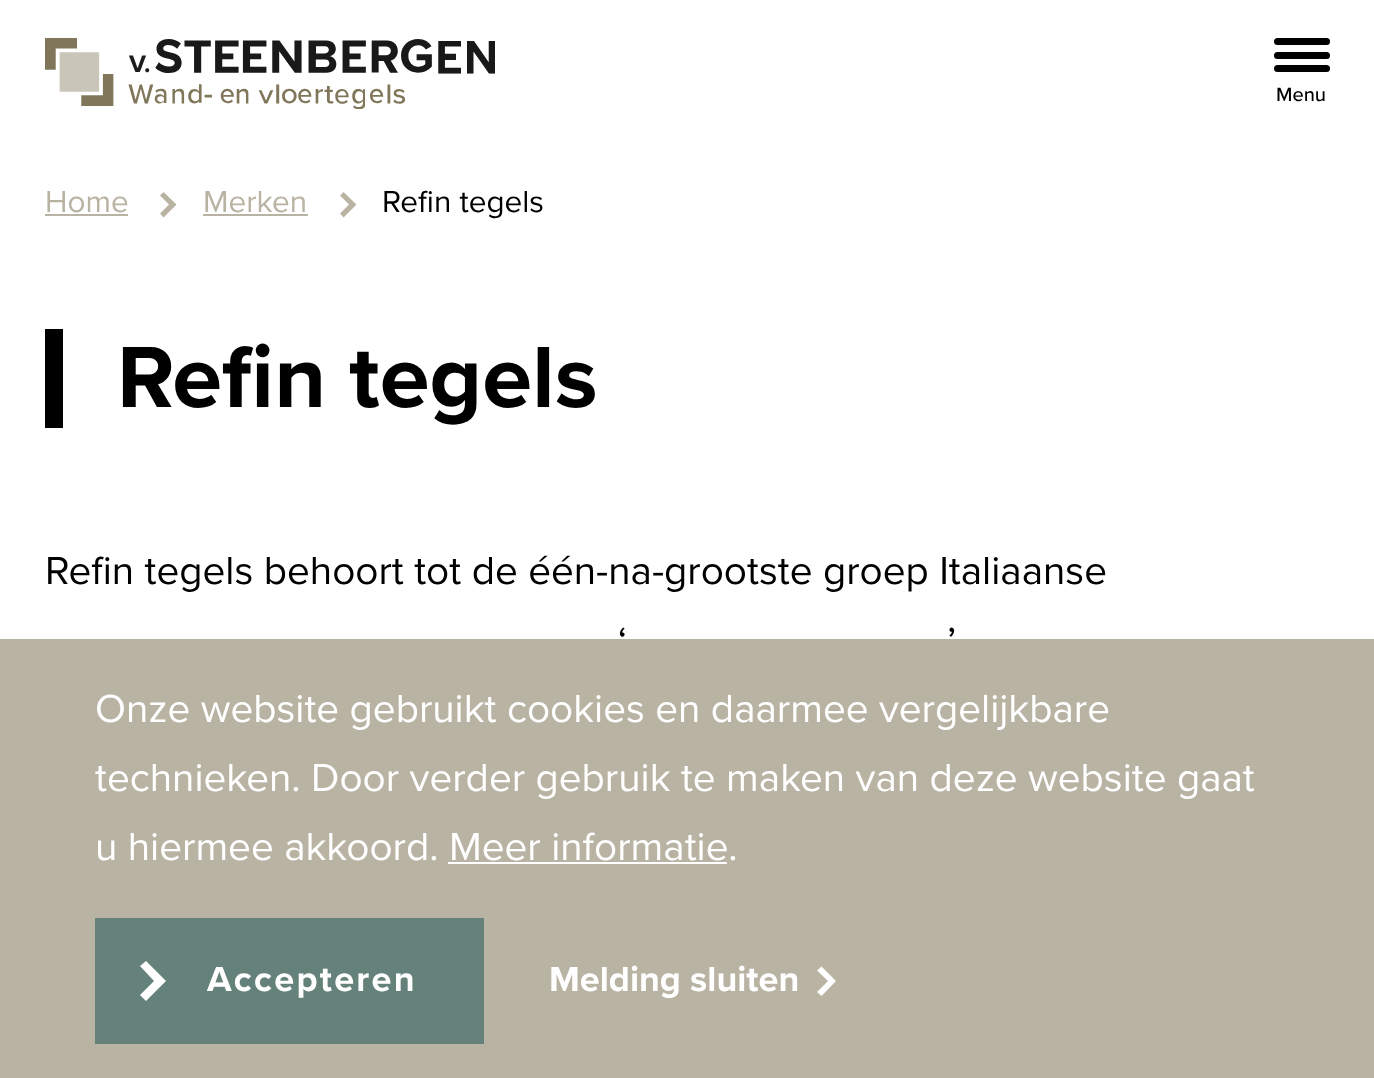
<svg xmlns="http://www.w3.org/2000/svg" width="1374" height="1078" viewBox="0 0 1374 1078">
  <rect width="100%" height="100%" fill="#fff"/>
  <image x="45" y="38" width="450" height="71" href="img/1.png"/>
  <rect x="1274" y="52" width="56" height="7" rx="3.5" fill="#000"/>
  <rect x="1274" y="38" width="56" height="7" rx="3.5" fill="#000"/>
  <rect x="1274" y="65" width="56" height="7" rx="3.5" fill="#000"/>
  <path d="M45 214h83v2H45z" fill="#b9b3a4"/>
  <path d="M163.5 192L160 195.5L169 204.5L160 213.5L163.5 217.5L176.5 204.5Z" fill="#b9b3a4"/>
  <path d="M203 214h105v2H203z" fill="#b9b3a4"/>
  <path d="M343.5 192L340 195.5L349 204.5L340 213.5L343.5 217.5L356.5 204.5Z" fill="#b9b3a4"/>
  <path d="M45 329h18v99H45z" fill="#000"/>
  <path d="M0 639h1374v439H0z" fill="#b9b3a4"/>
  <path d="M448 862h279v2H448z" fill="#fff"/>
  <path d="M95 918h389v126H95z" fill="#64827a"/>
  <path d="M146 961L140 966L154 981L140 995L146 1001L166 981Z" fill="#fff"/>
  <path d="M821.5 966.5L817 970.5L828 981L817 992L821.5 996L836 981Z" fill="#fff"/>
  <text x="1276" y="101" font-family="Proxima Nova" font-size="20" font-weight="500" fill="#000">Menu</text>
  <g font-family="Proxima Nova" font-size="31.5" fill="#b9b3a4">
    <text x="45" y="212">Home</text>
    <text x="203" y="212">Merken</text>
  </g>
  <text x="382" y="212" font-family="Proxima Nova" font-size="31.5" fill="#000">Refin tegels</text>
  <text x="117" y="407" font-family="Proxima Nova" font-size="90" font-weight="bold" fill="#000">Refin tegels</text>
  <g font-family="Proxima Nova" font-size="40.5" fill="#000">
    <text x="45" y="584">Refin tegels behoort tot de één-na-grootste groep Italiaanse</text>
    <text x="618" y="655">‘</text>
    <text x="947" y="655">’</text>
  </g>
  <g font-family="Proxima Nova" font-size="40.5" fill="#fff">
    <text x="95" y="722">Onze website gebruikt cookies en daarmee vergelijkbare</text>
    <text x="95" y="791">technieken. Door verder gebruik te maken van deze website gaat</text>
    <text x="95" y="860">u hiermee akkoord. Meer informatie.</text>
  </g>
  <text x="207" y="991" font-family="Proxima Nova" font-size="36" font-weight="bold" letter-spacing="2.25" fill="#fff">Accepteren</text>
  <text x="549" y="991" font-family="Proxima Nova" font-size="36" font-weight="bold" fill="#fff">Melding sluiten</text>
</svg>
